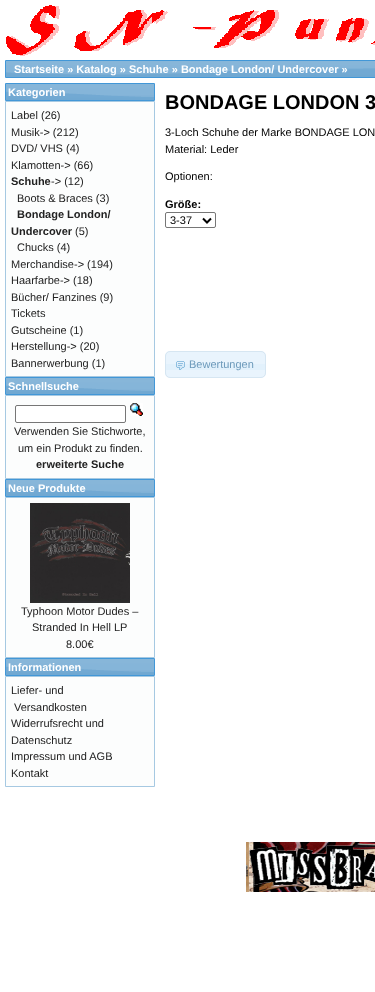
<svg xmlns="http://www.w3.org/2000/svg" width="375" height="992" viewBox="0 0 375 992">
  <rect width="100%" height="100%" fill="#fff"/>
  <image x="6" y="5" width="369" height="51" href="img/1.png"/>
  <image x="6" y="61" width="369" height="16" href="img/2.png"/>
  <path d="M5.5 60.5h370v17H5.5z" fill="none" stroke="#4297d7"/>
  <image x="6" y="84" width="148" height="16" href="img/3.png"/>
  <path d="M5.5 83.5h149v17H5.5z" fill="none" stroke="#4297d7"/>
  <path d="M5.5 101.5h149v275H5.5z" fill="#fcfdfd" stroke="#a6c9e2"/>
  <image x="6" y="378" width="148" height="16" href="img/3.png"/>
  <path d="M5.5 377.5h149v17H5.5z" fill="none" stroke="#4297d7"/>
  <path d="M5.5 395.5h149v83H5.5z" fill="#fcfdfd" stroke="#a6c9e2"/>
  <rect x="15.5" y="405.5" width="110" height="17" rx="1.5" fill="#fff" stroke="#767676"/>
  <image x="130" y="403" width="13" height="13" href="img/4.png"/>
  <image x="6" y="480" width="148" height="16" href="img/3.png"/>
  <path d="M5.5 479.5h149v17H5.5z" fill="none" stroke="#4297d7"/>
  <path d="M5.5 497.5h149v160H5.5z" fill="#fcfdfd" stroke="#a6c9e2"/>
  <image x="30" y="503" width="100" height="100" href="img/5.png"/>
  <image x="6" y="659" width="148" height="16" href="img/3.png"/>
  <path d="M5.5 658.5h149v17H5.5z" fill="none" stroke="#4297d7"/>
  <path d="M5.5 676.5h149v110H5.5z" fill="#fcfdfd" stroke="#a6c9e2"/>
  <rect x="165.5" y="212.5" width="50" height="15" rx="1.5" fill="none" stroke="#767676"/>
  <path d="M203 218.5L207 222.5L211 218.5" fill="none" stroke="#000" stroke-width="2"/>
  <rect x="165" y="351" width="101" height="27" rx="5" fill="#e9f4fd"/>
  <path d="M165 364h101v6H165z" fill="#e2f1fc"/>
  <rect x="165.5" y="351.5" width="100" height="26" rx="4.5" fill="none" stroke="#d6e6f2"/>
  <image x="176" y="361" width="9" height="9" href="img/6.png"/>
  <image x="246" y="842" width="129" height="50" href="img/7.png"/>
  <g font-family="Liberation Sans" font-size="11" font-weight="bold" fill="#fff">
    <text x="14" y="73">Startseite » Katalog » Schuhe » Bondage London/ Undercover »</text>
    <text x="8" y="96">Kategorien</text>
  </g>
  <g font-family="Liberation Sans" font-size="11" fill="#222">
    <text x="11" y="119">Label (26)</text>
    <text x="11" y="136">Musik-&gt; (212)</text>
    <text x="11" y="152">DVD/ VHS (4)</text>
    <text x="11" y="169">Klamotten-&gt; (66)</text>
  </g>
  <text x="11" y="185" font-family="Liberation Sans" font-size="11" font-weight="bold" fill="#222">Schuhe</text>
  <g font-family="Liberation Sans" font-size="11" fill="#222">
    <text x="51" y="185">-&gt; (12)</text>
    <text x="17" y="202">Boots &amp; Braces (3)</text>
  </g>
  <g font-family="Liberation Sans" font-size="11" font-weight="bold" fill="#222">
    <text x="17" y="218">Bondage London/</text>
    <text x="11" y="235">Undercover</text>
  </g>
  <g font-family="Liberation Sans" font-size="11" fill="#222">
    <text x="75" y="235">(5)</text>
    <text x="17" y="251">Chucks (4)</text>
    <text x="11" y="268">Merchandise-&gt; (194)</text>
    <text x="11" y="284">Haarfarbe-&gt; (18)</text>
    <text x="11" y="301">Bücher/ Fanzines (9)</text>
    <text x="11" y="317">Tickets</text>
    <text x="11" y="334">Gutscheine (1)</text>
    <text x="11" y="350">Herstellung-&gt; (20)</text>
    <text x="11" y="367">Bannerwerbung (1)</text>
  </g>
  <text x="8" y="390" font-family="Liberation Sans" font-size="11" font-weight="bold" fill="#fff">Schnellsuche</text>
  <g font-family="Liberation Sans" font-size="11" fill="#222">
    <text x="14" y="435">Verwenden Sie Stichworte,</text>
    <text x="18" y="452">um ein Produkt zu finden.</text>
  </g>
  <text x="36" y="468" font-family="Liberation Sans" font-size="11" font-weight="bold" fill="#222">erweiterte Suche</text>
  <text x="8" y="492" font-family="Liberation Sans" font-size="11" font-weight="bold" fill="#fff">Neue Produkte</text>
  <g font-family="Liberation Sans" font-size="11" fill="#222">
    <text x="21" y="615">Typhoon Motor Dudes –</text>
    <text x="32" y="631">Stranded In Hell LP</text>
    <text x="66" y="648">8.00€</text>
  </g>
  <text x="8" y="671" font-family="Liberation Sans" font-size="11" font-weight="bold" fill="#fff">Informationen</text>
  <g font-family="Liberation Sans" font-size="11" fill="#222">
    <text x="11" y="694">Liefer- und</text>
    <text x="14" y="711">Versandkosten</text>
    <text x="11" y="727">Widerrufsrecht und</text>
    <text x="11" y="744">Datenschutz</text>
    <text x="11" y="760">Impressum und AGB</text>
    <text x="11" y="777">Kontakt</text>
  </g>
  <text x="165" y="109" font-family="Liberation Sans" font-size="20" font-weight="bold" fill="#000">BONDAGE LONDON 3</text>
  <g font-family="Liberation Sans" font-size="11" fill="#000">
    <text x="165" y="136">3-Loch Schuhe der Marke BONDAGE LON</text>
    <text x="165" y="153">Material: Leder</text>
    <text x="165" y="180">Optionen:</text>
  </g>
  <text x="165" y="208" font-family="Liberation Sans" font-size="11" font-weight="bold" fill="#000">Größe:</text>
  <text x="170" y="224" font-family="Liberation Sans" font-size="11" fill="#000">3-37</text>
  <text x="189" y="368" font-family="Liberation Sans" font-size="11" fill="#6d9abb">Bewertungen</text>
</svg>
